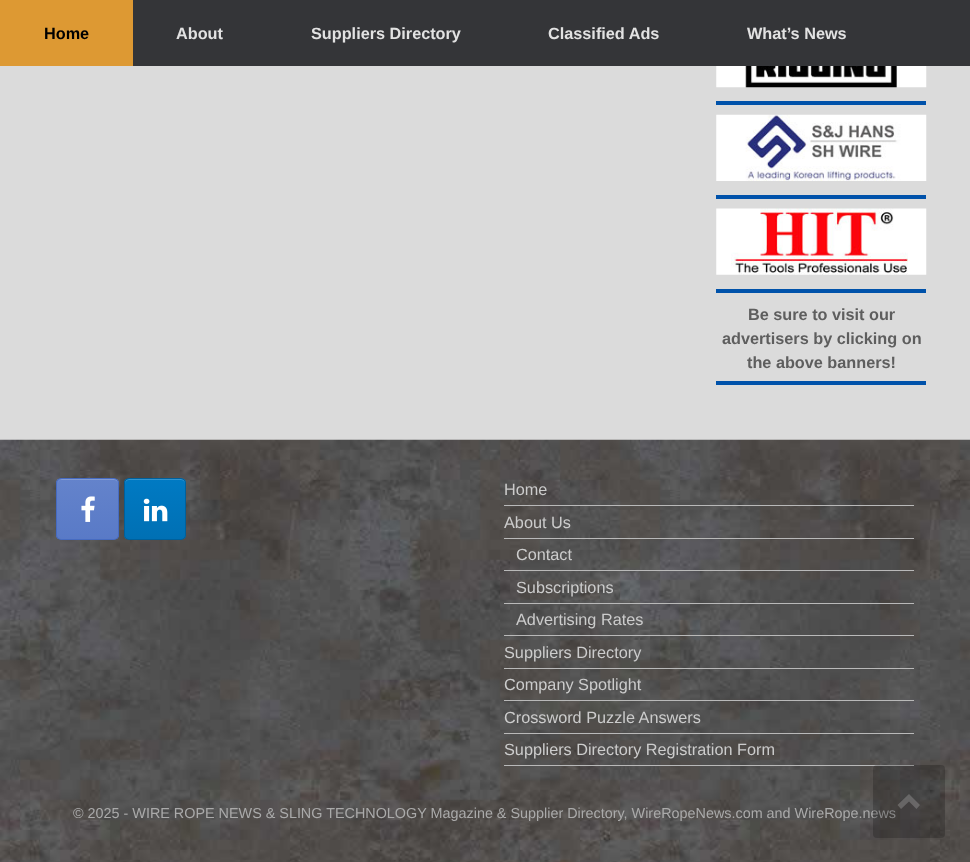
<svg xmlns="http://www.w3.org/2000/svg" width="970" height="862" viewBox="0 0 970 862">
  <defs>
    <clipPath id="clip1"><rect x="56" y="478" width="63" height="62" rx="5"/></clipPath>
    <linearGradient id="g1" gradientUnits="userSpaceOnUse" x1="58" y1="539" x2="58" y2="479"><stop offset="0" stop-color="#597ac7"/><stop offset="1" stop-color="#6483cb"/></linearGradient>
    <clipPath id="clip2"><rect x="124" y="478" width="62" height="62" rx="5"/></clipPath>
    <linearGradient id="g2" gradientUnits="userSpaceOnUse" x1="125" y1="539" x2="125" y2="479"><stop offset="0" stop-color="#0070b4"/><stop offset="1" stop-color="#007ac3"/></linearGradient>
  </defs>
  <rect width="100%" height="100%" fill="#dbdbdb"/>
  <path d="M133 0h837v66H133z" fill="#343538"/>
  <path d="M0 0h133v66H0z" fill="#d93"/>
  <path d="M716 101h210v4H716z" fill="#0052aa"/>
  <image x="716" y="66" width="211" height="22" href="img/1.png"/>
  <path d="M716 195h210v4H716z" fill="#0052aa"/>
  <image x="716" y="114" width="211" height="67" href="img/2.png"/>
  <path d="M716 289h210v4H716z" fill="#0052aa"/>
  <image x="716" y="208" width="211" height="67" href="img/3.png"/>
  <path d="M716 381h210v4H716z" fill="#0052aa"/>
  <image x="0" y="439" width="970" height="423" href="img/4.png"/>
  <g clip-path="url(#clip1)">
    <path d="M56 479h63v60H56z" fill="url(#g1)"/>
  </g>
  <path d="M61 480H114C116 480 118 482 118 484C118 477 110 479 105 479H71C66 479 58 477 58 484C58 482 59 480 61 480Z" fill="#839cd5"/>
  <rect x="56.5" y="478.5" width="62" height="61" rx="4.5" fill="none" stroke="#466bc1"/>
  <image x="81" y="496" width="14" height="26" href="img/5.png"/>
  <g clip-path="url(#clip2)">
    <path d="M124 479h62v60H124z" fill="url(#g2)"/>
  </g>
  <path d="M129 480H181C183 480 185 482 185 484C185 477 177 479 172 479H138C133 479 125 477 125 484C125 482 127 480 129 480Z" fill="#3395cf"/>
  <rect x="124.5" y="478.5" width="61" height="61" rx="4.5" fill="none" stroke="#00609b"/>
  <image x="143" y="498" width="25" height="24" href="img/6.png"/>
  <path d="M504 505h410v1H504z" fill="#b9b9b9"/>
  <path d="M504 538h410v1H504z" fill="#b9b9b9"/>
  <path d="M504 570h410v1H504z" fill="#b9b9b9"/>
  <path d="M504 603h410v1H504z" fill="#b9b9b9"/>
  <path d="M504 635h410v1H504z" fill="#b9b9b9"/>
  <path d="M504 668h410v1H504z" fill="#b9b9b9"/>
  <path d="M504 700h410v1H504z" fill="#b9b9b9"/>
  <path d="M504 733h410v1H504z" fill="#b9b9b9"/>
  <path d="M504 765h410v1H504z" fill="#b9b9b9"/>
  <text x="44" y="39" font-family="Liberation Sans" font-size="16.25" font-weight="bold" fill="#000">Home</text>
  <g font-family="Liberation Sans" font-size="16.25" font-weight="bold" fill="#e2e2e2">
    <text x="176" y="39">About</text>
    <text x="311" y="39">Suppliers Directory</text>
    <text x="548" y="39">Classified Ads</text>
    <text x="747" y="39">What’s News</text>
  </g>
  <g font-family="Liberation Sans" font-size="16.25" font-weight="bold" fill="#5e5e5e">
    <text x="748" y="320">Be sure to visit our</text>
    <text x="722" y="344">advertisers by clicking on</text>
    <text x="747" y="368">the above banners!</text>
  </g>
  <g font-family="Liberation Sans" font-size="16.25" fill="#ccc">
    <text x="504" y="495">Home</text>
    <text x="504" y="528">About Us</text>
    <text x="516" y="560">Contact</text>
    <text x="516" y="593">Subscriptions</text>
    <text x="516" y="625">Advertising Rates</text>
    <text x="504" y="658">Suppliers Directory</text>
    <text x="504" y="690">Company Spotlight</text>
    <text x="504" y="723">Crossword Puzzle Answers</text>
    <text x="504" y="755">Suppliers Directory Registration Form</text>
  </g>
  <text x="73" y="818" font-family="Liberation Sans" font-size="14.38" fill="#aaa">© 2025 - WIRE ROPE NEWS &amp; SLING TECHNOLOGY Magazine &amp; Supplier Directory, WireRopeNews.com and WireRope.news</text>
  <rect x="873" y="765" width="72" height="73" rx="4" fill="#00000033"/>
  <path d="M920 805L909 794L897.5 805L901 809L909 801.5L916.5 809Z" fill="#ffffff33"/>
</svg>
